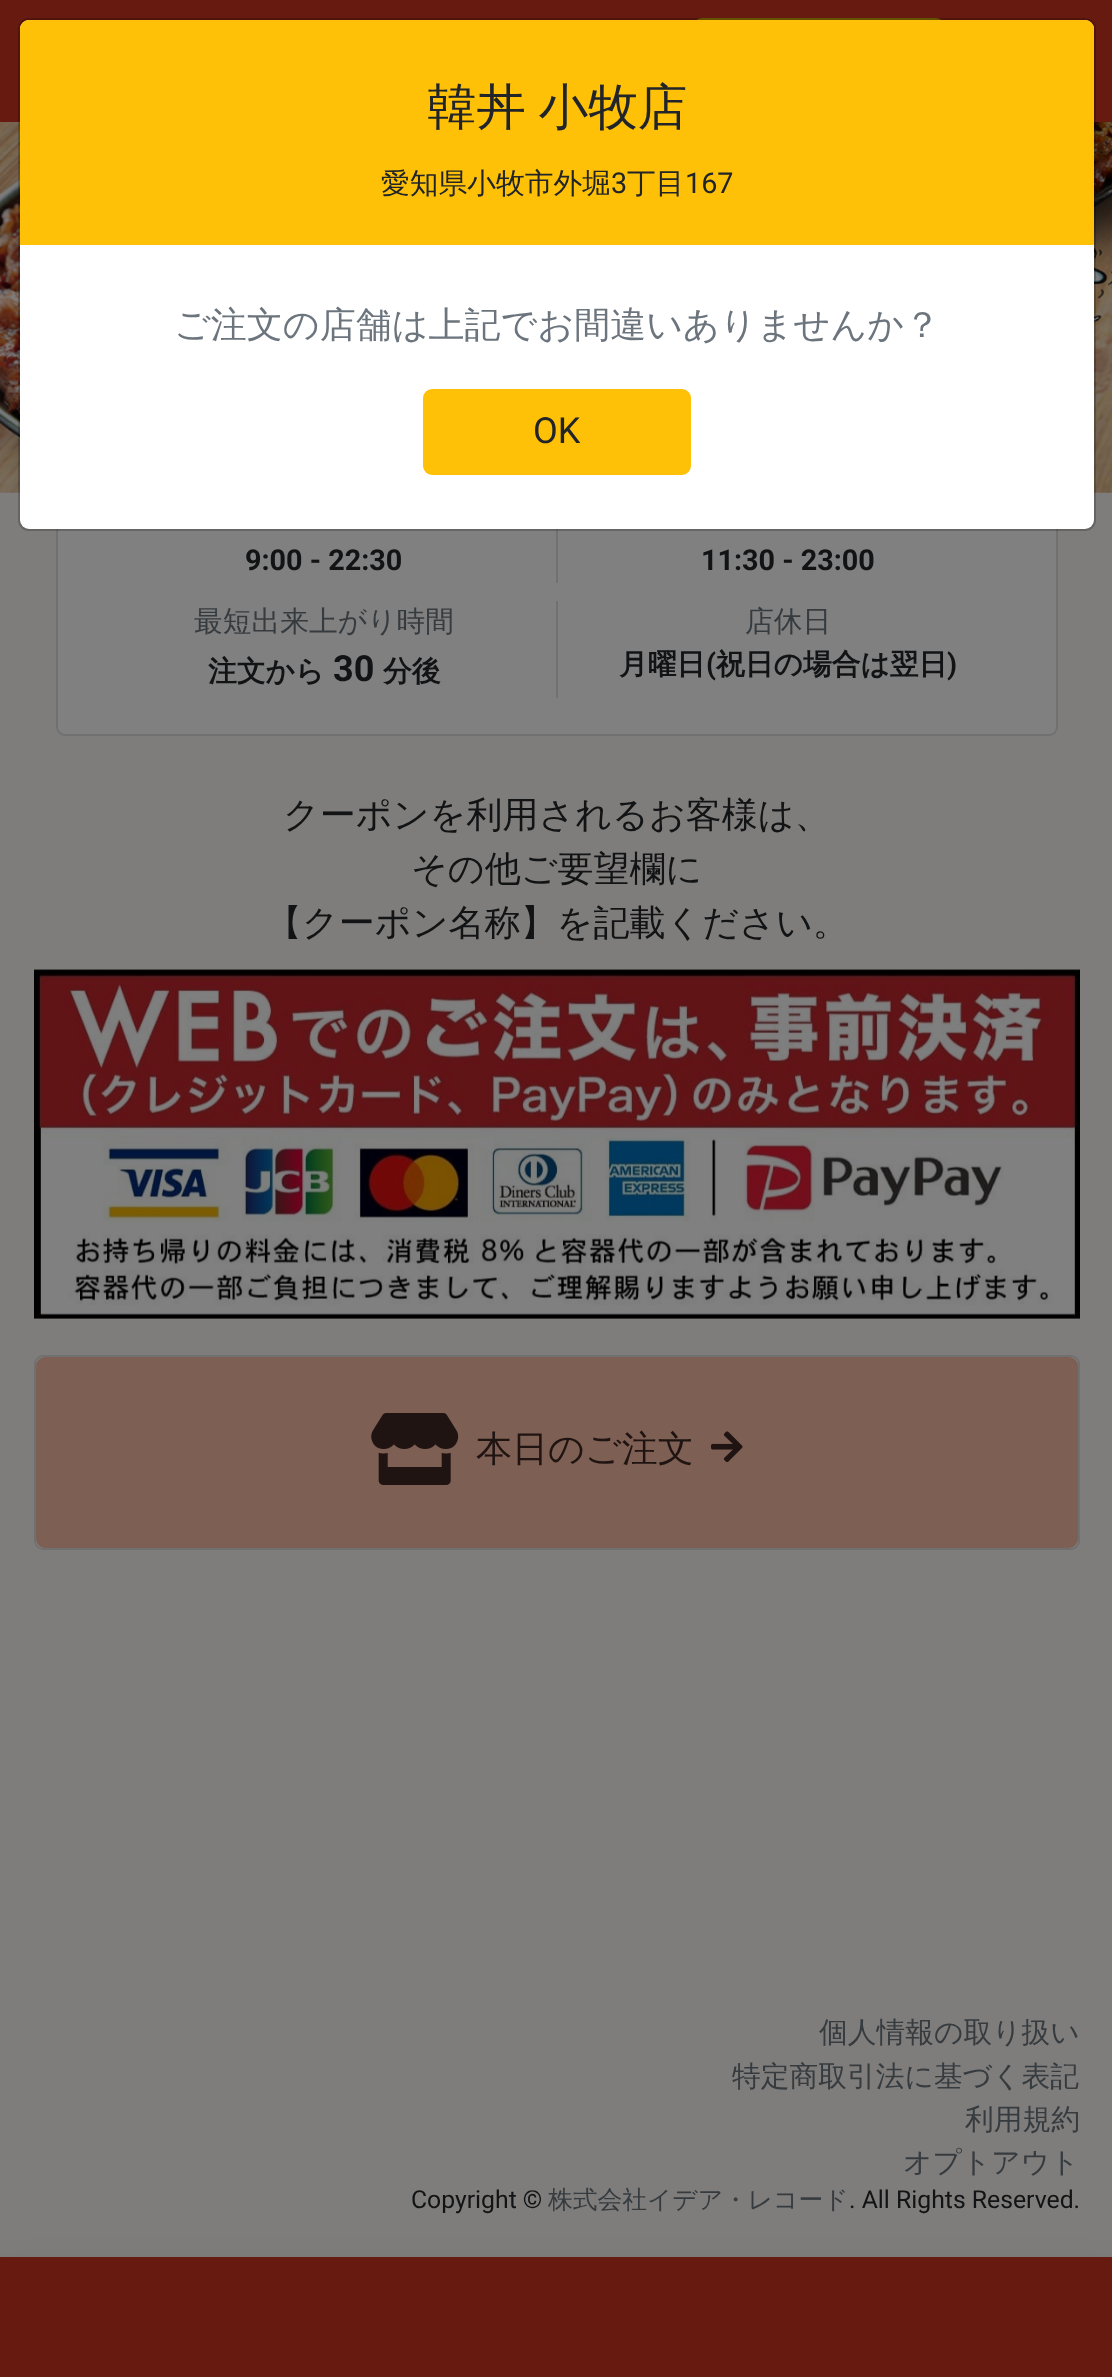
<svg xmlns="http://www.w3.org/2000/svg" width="1112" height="2377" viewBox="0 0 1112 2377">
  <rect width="100%" height="100%" fill="#7f7d7b"/>
  <path d="M0 0h1112v122H0z" fill="#661a10"/>
  <rect x="694" y="19" width="250" height="88" rx="8" fill="none" stroke="#7d6701" stroke-width="2"/>
  <image x="0" y="122" width="1112" height="371" href="img/1.png"/>
  <rect x="56" y="403" width="1002" height="333" rx="9" fill="#808080"/>
  <rect x="57" y="404" width="1000" height="331" rx="8" fill="none" stroke="#0000001f" stroke-width="2"/>
  <rect x="20" y="20" width="1074" height="509" rx="9" fill="#fff"/>
  <path d="M556 529h2v54H556z" fill="#6f7173"/>
  <rect x="19" y="19" width="1076" height="511" rx="10" fill="none" stroke="#00000033" stroke-width="2"/>
  <path d="M29 20H1085C1090 20 1094 24 1094 29V245H20V29C20 24 24 20 29 20Z" fill="#ffc107"/>
  <rect x="424" y="390" width="266" height="84" rx="8" fill="#ffc107" stroke="#ffc107" stroke-width="2"/>
  <path d="M556 601h2v97H556z" fill="#6f7173"/>
  <image x="34" y="969" width="1046" height="350" href="img/2.png"/>
  <rect x="34" y="1355" width="1046" height="195" rx="9" fill="#808080"/>
  <rect x="35" y="1356" width="1044" height="193" rx="8" fill="none" stroke="#0000001f" stroke-width="2"/>
  <rect x="37" y="1358" width="1040" height="189" rx="8" fill="#7d5f53" stroke="#7d5f53" stroke-width="2"/>
  <image x="371" y="1413" width="88" height="72" href="img/3.png"/>
  <image x="711" y="1431" width="32" height="32" href="img/4.png"/>
  <path d="M0 2275h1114v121H0z" fill="#00000026" filter="blur(18px)"/>
  <path d="M0 2257h1112v120H0z" fill="#661a10"/>
  <text x="427" y="124" word-spacing="-2" font-family="WenQuanYi Zen Hei" font-size="49.5" font-weight="500" fill="#212529">韓丼 小牧店</text>
  <text x="381" y="193" font-family="WenQuanYi Zen Hei" font-size="28.75" font-weight="500" fill="#212529">愛知県小牧市外堀</text>
  <text x="611" y="193" font-family="Roboto" font-size="28.75" fill="#212529">3</text>
  <text x="627" y="193" font-family="WenQuanYi Zen Hei" font-size="28.75" font-weight="500" fill="#212529">丁目</text>
  <text x="685" y="193" font-family="Roboto" font-size="28.75" fill="#212529">167</text>
  <text x="174" y="337" font-family="WenQuanYi Zen Hei" font-size="36" font-weight="500" fill="#6c757d">ご注文の店舗は上記でお間違いありませんか？</text>
  <text x="533" y="443" font-family="Roboto" font-size="36" fill="#212529">OK</text>
  <g font-family="Roboto" font-size="28.75" font-weight="bold" fill="#111315">
    <text x="245" y="570">9:00 - 22:30</text>
    <text x="701" y="570">11:30 - 23:00</text>
  </g>
  <text x="194" y="631" font-family="WenQuanYi Zen Hei" font-size="28.75" font-weight="500" fill="#363b3f">最短出来上がり時間</text>
  <text x="208" y="681" font-family="WenQuanYi Zen Hei" font-size="28.75" font-weight="bold" fill="#111315">注文から</text>
  <text x="333" y="681" font-family="Roboto" font-size="36" font-weight="bold" fill="#111315">30</text>
  <text x="383" y="681" font-family="WenQuanYi Zen Hei" font-size="28.75" font-weight="bold" fill="#111315">分後</text>
  <text x="745" y="631" font-family="WenQuanYi Zen Hei" font-size="28.75" font-weight="500" fill="#363b3f">店休日</text>
  <text x="619" y="674" font-family="WenQuanYi Zen Hei" font-size="28.75" font-weight="bold" fill="#111315">月曜日</text>
  <text x="706" y="674" font-family="Roboto" font-size="28.75" font-weight="bold" fill="#111315">(</text>
  <text x="716" y="674" font-family="WenQuanYi Zen Hei" font-size="28.75" font-weight="bold" fill="#111315">祝日の場合は翌日</text>
  <text x="947" y="674" font-family="Roboto" font-size="28.75" font-weight="bold" fill="#111315">)</text>
  <g font-family="WenQuanYi Zen Hei" font-size="36" font-weight="500" fill="#111315">
    <text x="283" y="827">クーポンを利用されるお客様は、</text>
    <text x="411" y="881">その他ご要望欄に</text>
    <text x="266" y="935">【クーポン名称】を記載ください。</text>
  </g>
  <text x="476" y="1461" font-family="WenQuanYi Zen Hei" font-size="36" font-weight="500" fill="#1f1412">本日のご注文</text>
  <g font-family="WenQuanYi Zen Hei" font-size="28.75" font-weight="500" fill="#363b3f">
    <text x="819" y="2042">個人情報の取り扱い</text>
    <text x="732" y="2086">特定商取引法に基づく表記</text>
    <text x="965" y="2129">利用規約</text>
    <text x="903" y="2172">オプトアウト</text>
  </g>
  <text x="411" y="2208" font-family="Roboto" font-size="24.75" fill="#111315">Copyright ©</text>
  <text x="548" y="2208" font-family="WenQuanYi Zen Hei" font-size="24.75" font-weight="500" fill="#363b3f">株式会社イデア・レコード</text>
  <text x="849" y="2208" font-family="Roboto" font-size="24.75" fill="#111315">. All Rights Reserved.</text>
</svg>
